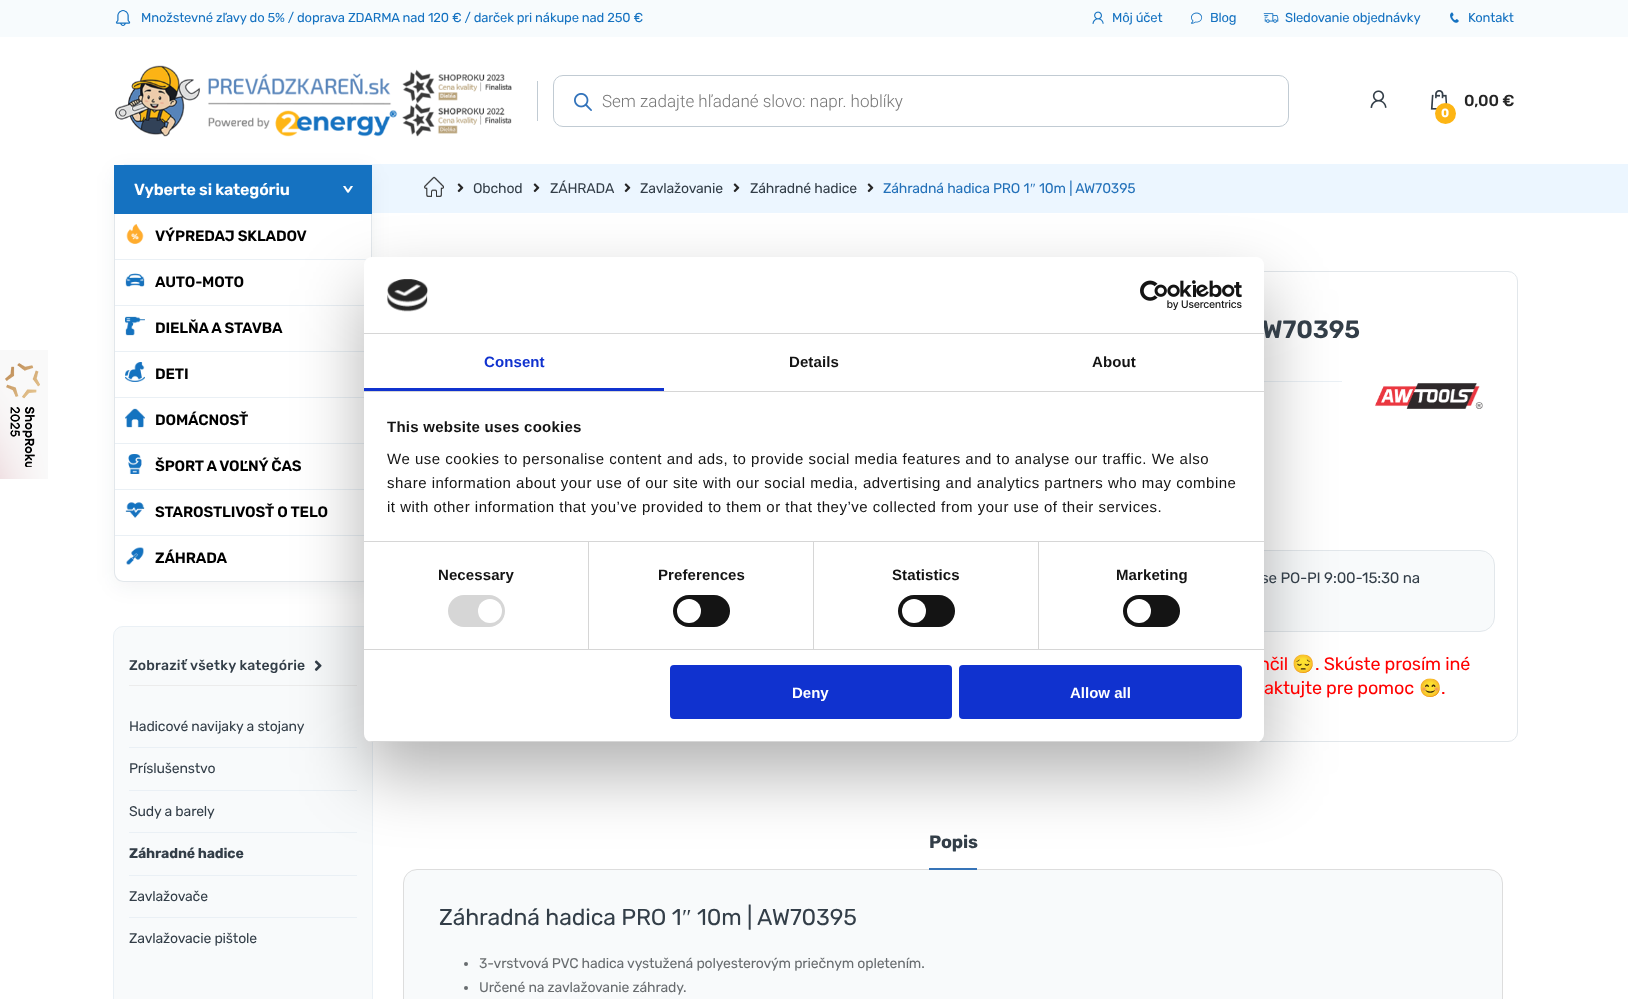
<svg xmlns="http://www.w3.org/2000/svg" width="1628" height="999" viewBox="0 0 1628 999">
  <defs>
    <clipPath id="clip1"><rect x="364" y="257" width="900" height="485" rx="8"/></clipPath>
  </defs>
  <rect width="100%" height="100%" fill="#fff"/>
  <image x="0" y="350" width="48" height="129" href="img/1.png"/>
  <path d="M0 0h1628v37H0z" fill="#f7fbfd"/>
  <image x="115" y="10" width="16" height="16" href="img/2.png"/>
  <image x="1092" y="11" width="12" height="13" href="img/3.png"/>
  <image x="1190" y="12" width="13" height="12" href="img/4.png"/>
  <image x="1263" y="13" width="16" height="10" href="img/5.png"/>
  <image x="1450" y="12" width="9" height="11" href="img/6.png"/>
  <image x="115" y="65" width="397" height="72" href="img/7.png"/>
  <path d="M537 81h1v40H537z" fill="#c1cbd3"/>
  <rect x="553.5" y="75.5" width="735" height="51" rx="9.5" fill="none" stroke="#c1cbd3"/>
  <image x="574" y="93" width="18" height="18" href="img/8.png"/>
  <image x="1370" y="90" width="17" height="18" href="img/9.png"/>
  <image x="1430" y="90" width="18" height="20" href="img/10.png"/>
  <circle cx="1445.5" cy="113.5" r="10.5" fill="#fdb514"/>
  <path d="M124 164h1504v49H124z" fill="#ecf6ff"/>
  <image x="424" y="176" width="20" height="21" href="img/11.png"/>
  <image x="457" y="183" width="7" height="10" href="img/12.png"/>
  <image x="533" y="183" width="7" height="10" href="img/12.png"/>
  <image x="624" y="183" width="7" height="10" href="img/12.png"/>
  <image x="733" y="183" width="7" height="10" href="img/12.png"/>
  <image x="867" y="183" width="7" height="10" href="img/12.png"/>
  <rect x="113.5" y="626.5" width="259" height="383" rx="9.5" fill="#f8fafb" stroke="#eaf0f5"/>
  <path d="M129 685h228v1H129z" fill="#ececec"/>
  <image x="314" y="660" width="8" height="11" href="img/13.png"/>
  <path d="M129 747h228v1H129z" fill="#eaf0f5"/>
  <path d="M129 790h228v1H129z" fill="#eaf0f5"/>
  <path d="M129 832h228v1H129z" fill="#eaf0f5"/>
  <path d="M129 875h228v1H129z" fill="#eaf0f5"/>
  <path d="M129 917h228v1H129z" fill="#eaf0f5"/>
  <rect x="859.5" y="271.5" width="658" height="470" rx="9.5" fill="none" stroke="#e2e7eb"/>
  <path d="M1264 381h78v1H1264z" fill="#eaf0f5"/>
  <image x="1375" y="383" width="108" height="26" href="img/14.png"/>
  <rect x="882.5" y="550.5" width="612" height="81" rx="14.5" fill="#f8fafb" stroke="#e2e7eb"/>
  <rect x="403.5" y="869.5" width="1099" height="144" rx="13.5" fill="#f8fafb" stroke="#ddd"/>
  <path d="M929 868h48v2H929z" fill="#3674b8"/>
  <circle cx="466" cy="964" r="2" fill="#686c6f"/>
  <circle cx="466" cy="988" r="2" fill="#686c6f"/>
  <rect x="114" y="170" width="258" height="417" rx="10" fill="#10202c0f" filter="blur(10px)"/>
  <path d="M114 165H372V572C372 577.5 367.5 582 362 582H124C118.5 582 114 577.5 114 572Z" fill="#fff"/>
  <path d="M114 165h258v49H114z" fill="#1572c1"/>
  <path d="M371 214h1v46H371z" fill="#e2e7eb"/>
  <path d="M114 259h258v1H114z" fill="#eaf0f5"/>
  <path d="M114 214h1v46H114z" fill="#e2e7eb"/>
  <image x="126" y="224" width="18" height="20" href="img/15.png"/>
  <path d="M114 305h258v1H114z" fill="#eaf0f5"/>
  <path d="M114 260h1v46H114z" fill="#e2e7eb"/>
  <image x="125" y="273" width="20" height="14" href="img/16.png"/>
  <path d="M114 351h258v1H114z" fill="#eaf0f5"/>
  <path d="M114 306h1v46H114z" fill="#e2e7eb"/>
  <image x="125" y="316" width="20" height="20" href="img/17.png"/>
  <path d="M114 397h258v1H114z" fill="#eaf0f5"/>
  <path d="M114 352h1v46H114z" fill="#e2e7eb"/>
  <image x="125" y="362" width="20" height="20" href="img/18.png"/>
  <path d="M114 443h258v1H114z" fill="#eaf0f5"/>
  <path d="M114 398h1v46H114z" fill="#e2e7eb"/>
  <image x="125" y="408" width="20" height="20" href="img/19.png"/>
  <path d="M114 489h258v1H114z" fill="#eaf0f5"/>
  <path d="M114 444h1v46H114z" fill="#e2e7eb"/>
  <image x="128" y="454" width="14" height="20" href="img/20.png"/>
  <path d="M114 535h258v1H114z" fill="#eaf0f5"/>
  <path d="M114 490h1v46H114z" fill="#e2e7eb"/>
  <image x="125" y="502" width="20" height="16" href="img/21.png"/>
  <path d="M114 536H372V572C372 578 368 582 362 582H124C118 582 114 578 114 572ZM115 536H371V572C371 577 367 581 362 581H124C119 581 115 577 115 572Z" fill="#e2e7eb" fill-rule="evenodd"/>
  <image x="126" y="547" width="18" height="18" href="img/22.png"/>
  <rect x="364" y="289" width="900" height="485" rx="8" fill="#0000004d" filter="blur(34px)"/>
  <g font-family="Rubik" font-size="13" letter-spacing="-0.15" fill="#1572c1">
    <text x="141" y="22">Množstevné zľavy do 5% / doprava ZDARMA nad 120 € / darček pri nákupe nad 250 €</text>
    <text x="1112" y="22">Môj účet</text>
    <text x="1210" y="22">Blog</text>
    <text x="1285" y="22">Sledovanie objednávky</text>
    <text x="1468" y="22">Kontakt</text>
  </g>
  <text x="602" y="107" font-family="Roboto" font-size="17" font-weight="300" fill="#777">Sem zadajte hľadané slovo: napr. hoblíky</text>
  <text x="1464" y="106" font-family="Rubik" font-size="16" font-weight="500" letter-spacing="-0.15" fill="#252525">0,00 €</text>
  <text x="1441" y="117" font-family="Rubik" font-size="12" font-weight="bold" letter-spacing="-0.15" fill="#fff">0</text>
  <g font-family="Rubik" font-size="14" letter-spacing="-0.15" fill="#333e48">
    <text x="473" y="193">Obchod</text>
    <text x="550" y="193">ZÁHRADA</text>
    <text x="640" y="193">Zavlažovanie</text>
    <text x="750" y="193">Záhradné hadice</text>
  </g>
  <text x="883" y="193" font-family="Rubik" font-size="14" letter-spacing="-0.15" fill="#2371b9">Záhradná hadica PRO 1</text>
  <text x="1030" y="193" font-family="Liberation Serif" font-size="14" letter-spacing="-0.15" fill="#2371b9">″</text>
  <text x="1039" y="193" font-family="Rubik" font-size="14" letter-spacing="-0.15" fill="#2371b9">10m | AW70395</text>
  <text x="129" y="670" font-family="Rubik" font-size="14" font-weight="500" letter-spacing="0.2" fill="#333e48">Zobraziť všetky kategórie</text>
  <g font-family="Rubik" font-size="14" letter-spacing="-0.15" fill="#333e48">
    <text x="129" y="731">Hadicové navijaky a stojany</text>
    <text x="129" y="773">Príslušenstvo</text>
    <text x="129" y="816">Sudy a barely</text>
  </g>
  <text x="129" y="858" font-family="Rubik" font-size="14" font-weight="bold" letter-spacing="-0.15" fill="#333e48">Záhradné hadice</text>
  <g font-family="Rubik" font-size="14" letter-spacing="-0.15" fill="#333e48">
    <text x="129" y="901">Zavlažovače</text>
    <text x="129" y="943">Zavlažovacie pištole</text>
  </g>
  <text x="1262" y="338" font-family="Rubik" font-size="25" font-weight="600" letter-spacing="-0.15" fill="#333e48">W70395</text>
  <text x="1261" y="583" font-family="Rubik" font-size="15.1" letter-spacing="-0.15" fill="#333e48">se PO-PI 9:00-15:30 na</text>
  <text x="1259" y="670" font-family="Rubik" font-size="18" letter-spacing="-0.15" fill="#f00">nčil</text>
  <text x="1292" y="670" font-family="Noto Color Emoji" font-size="18" letter-spacing="-0.15" fill="#f00">😔</text>
  <g font-family="Rubik" font-size="18" letter-spacing="-0.15" fill="#f00">
    <text x="1315" y="670">. Skúste prosím iné</text>
    <text x="1264" y="694">aktujte pre pomoc</text>
  </g>
  <text x="1419" y="694" font-family="Noto Color Emoji" font-size="18" letter-spacing="-0.15" fill="#f00">😊</text>
  <text x="1441" y="694" font-family="Rubik" font-size="18" letter-spacing="-0.15" fill="#f00">.</text>
  <text x="929" y="848" font-family="Rubik" font-size="18" font-weight="bold" letter-spacing="-0.15" fill="#333e48">Popis</text>
  <text x="439" y="925" font-family="Rubik" font-size="23" letter-spacing="-0.15" fill="#333e48">Záhradná hadica PRO 1</text>
  <text x="682" y="925" font-family="Liberation Serif" font-size="23" letter-spacing="-0.15" fill="#333e48">″</text>
  <text x="697" y="925" font-family="Rubik" font-size="23" letter-spacing="-0.15" fill="#333e48">10m | AW70395</text>
  <g font-family="Rubik" font-size="14" letter-spacing="-0.15" fill="#686c6f">
    <text x="479" y="968">3-vrstvová PVC hadica vystužená polyesterovým priečnym opletením.</text>
    <text x="479" y="992">Určené na zavlažovanie záhrady.</text>
  </g>
  <g font-family="Rubik" font-size="16" font-weight="600" letter-spacing="-0.15" fill="#fff">
    <text x="134" y="195">Vyberte si kategóriu</text>
    <text x="343" y="185" transform="rotate(90 343 185)">&gt;</text>
  </g>
  <g font-family="Rubik" font-size="15" font-weight="600" letter-spacing="-0.15" fill="#000">
    <text x="155" y="241">VÝPREDAJ SKLADOV</text>
    <text x="155" y="287">AUTO-MOTO</text>
    <text x="155" y="333">DIELŇA A STAVBA</text>
    <text x="155" y="379">DETI</text>
    <text x="155" y="425">DOMÁCNOSŤ</text>
    <text x="155" y="471">ŠPORT A VOĽNÝ ČAS</text>
    <text x="155" y="517">STAROSTLIVOSŤ O TELO</text>
    <text x="155" y="563">ZÁHRADA</text>
  </g>
  <rect x="364" y="257" width="900" height="485" rx="8" fill="#fff"/>
  <path d="M364 333h900v1H364z" fill="#d6d6d6"/>
  <image x="387" y="279" width="41" height="33" href="img/23.png"/>
  <image x="1140" y="280" width="102" height="30" href="img/24.png"/>
  <path d="M364 391h900v1H364z" fill="#d6d6d6"/>
  <path d="M364 388h300v3H364z" fill="#1032cf"/>
  <text x="484" y="367" font-family="Liberation Sans" font-size="15" font-weight="bold" letter-spacing="0.1" fill="#1032cf">Consent</text>
  <g font-family="Liberation Sans" font-size="15" font-weight="bold" letter-spacing="0.1" fill="#141414">
    <text x="789" y="367">Details</text>
    <text x="1092" y="367">About</text>
  </g>
  <path d="M364 541h900v1H364z" fill="#d6d6d6"/>
  <text x="387" y="432" font-family="Liberation Sans" font-size="15" font-weight="bold" letter-spacing="0.25" fill="#141414">This website uses cookies</text>
  <g font-family="Liberation Sans" font-size="15" letter-spacing="0.5" fill="#141414">
    <text x="387" y="464">We use cookies to personalise content and ads, to provide social media features and to analyse our traffic. We also</text>
    <text x="387" y="488">share information about your use of our site with our social media, advertising and analytics partners who may combine</text>
    <text x="387" y="512">it with other information that you’ve provided to them or that they’ve collected from your use of their services.</text>
  </g>
  <path d="M364 649h900v1H364z" fill="#d6d6d6"/>
  <path d="M588 542h1v107H588z" fill="#d6d6d6"/>
  <text x="438" y="580" font-family="Liberation Sans" font-size="15" font-weight="bold" letter-spacing="0.1" fill="#141414">Necessary</text>
  <rect x="448" y="595" width="57" height="32" rx="16" fill="#d6d6d6"/>
  <circle cx="490" cy="611" r="12" fill="#fff"/>
  <path d="M813 542h1v107H813z" fill="#d6d6d6"/>
  <text x="658" y="580" font-family="Liberation Sans" font-size="15" font-weight="bold" letter-spacing="0.1" fill="#141414">Preferences</text>
  <rect x="673" y="595" width="57" height="32" rx="16" fill="#141414"/>
  <circle cx="689" cy="611" r="12" fill="#fff"/>
  <path d="M1038 542h1v107H1038z" fill="#d6d6d6"/>
  <text x="892" y="580" font-family="Liberation Sans" font-size="15" font-weight="bold" letter-spacing="0.1" fill="#141414">Statistics</text>
  <rect x="898" y="595" width="57" height="32" rx="16" fill="#141414"/>
  <circle cx="914" cy="611" r="12" fill="#fff"/>
  <text x="1116" y="580" font-family="Liberation Sans" font-size="15" font-weight="bold" letter-spacing="0.1" fill="#141414">Marketing</text>
  <rect x="1123" y="595" width="57" height="32" rx="16" fill="#141414"/>
  <circle cx="1139" cy="611" r="12" fill="#fff"/>
  <g clip-path="url(#clip1)">
    <path d="M364 741h900v1H364z" fill="#d6d6d6"/>
  </g>
  <rect x="671" y="666" width="280" height="52" rx="3" fill="#1032cf" stroke="#1032cf" stroke-width="2"/>
  <text x="792" y="698" font-family="Liberation Sans" font-size="15" font-weight="bold" fill="#fff">Deny</text>
  <rect x="960" y="666" width="281" height="52" rx="3" fill="#1032cf" stroke="#1032cf" stroke-width="2"/>
  <text x="1070" y="698" font-family="Liberation Sans" font-size="15" font-weight="bold" fill="#fff">Allow all</text>
</svg>
